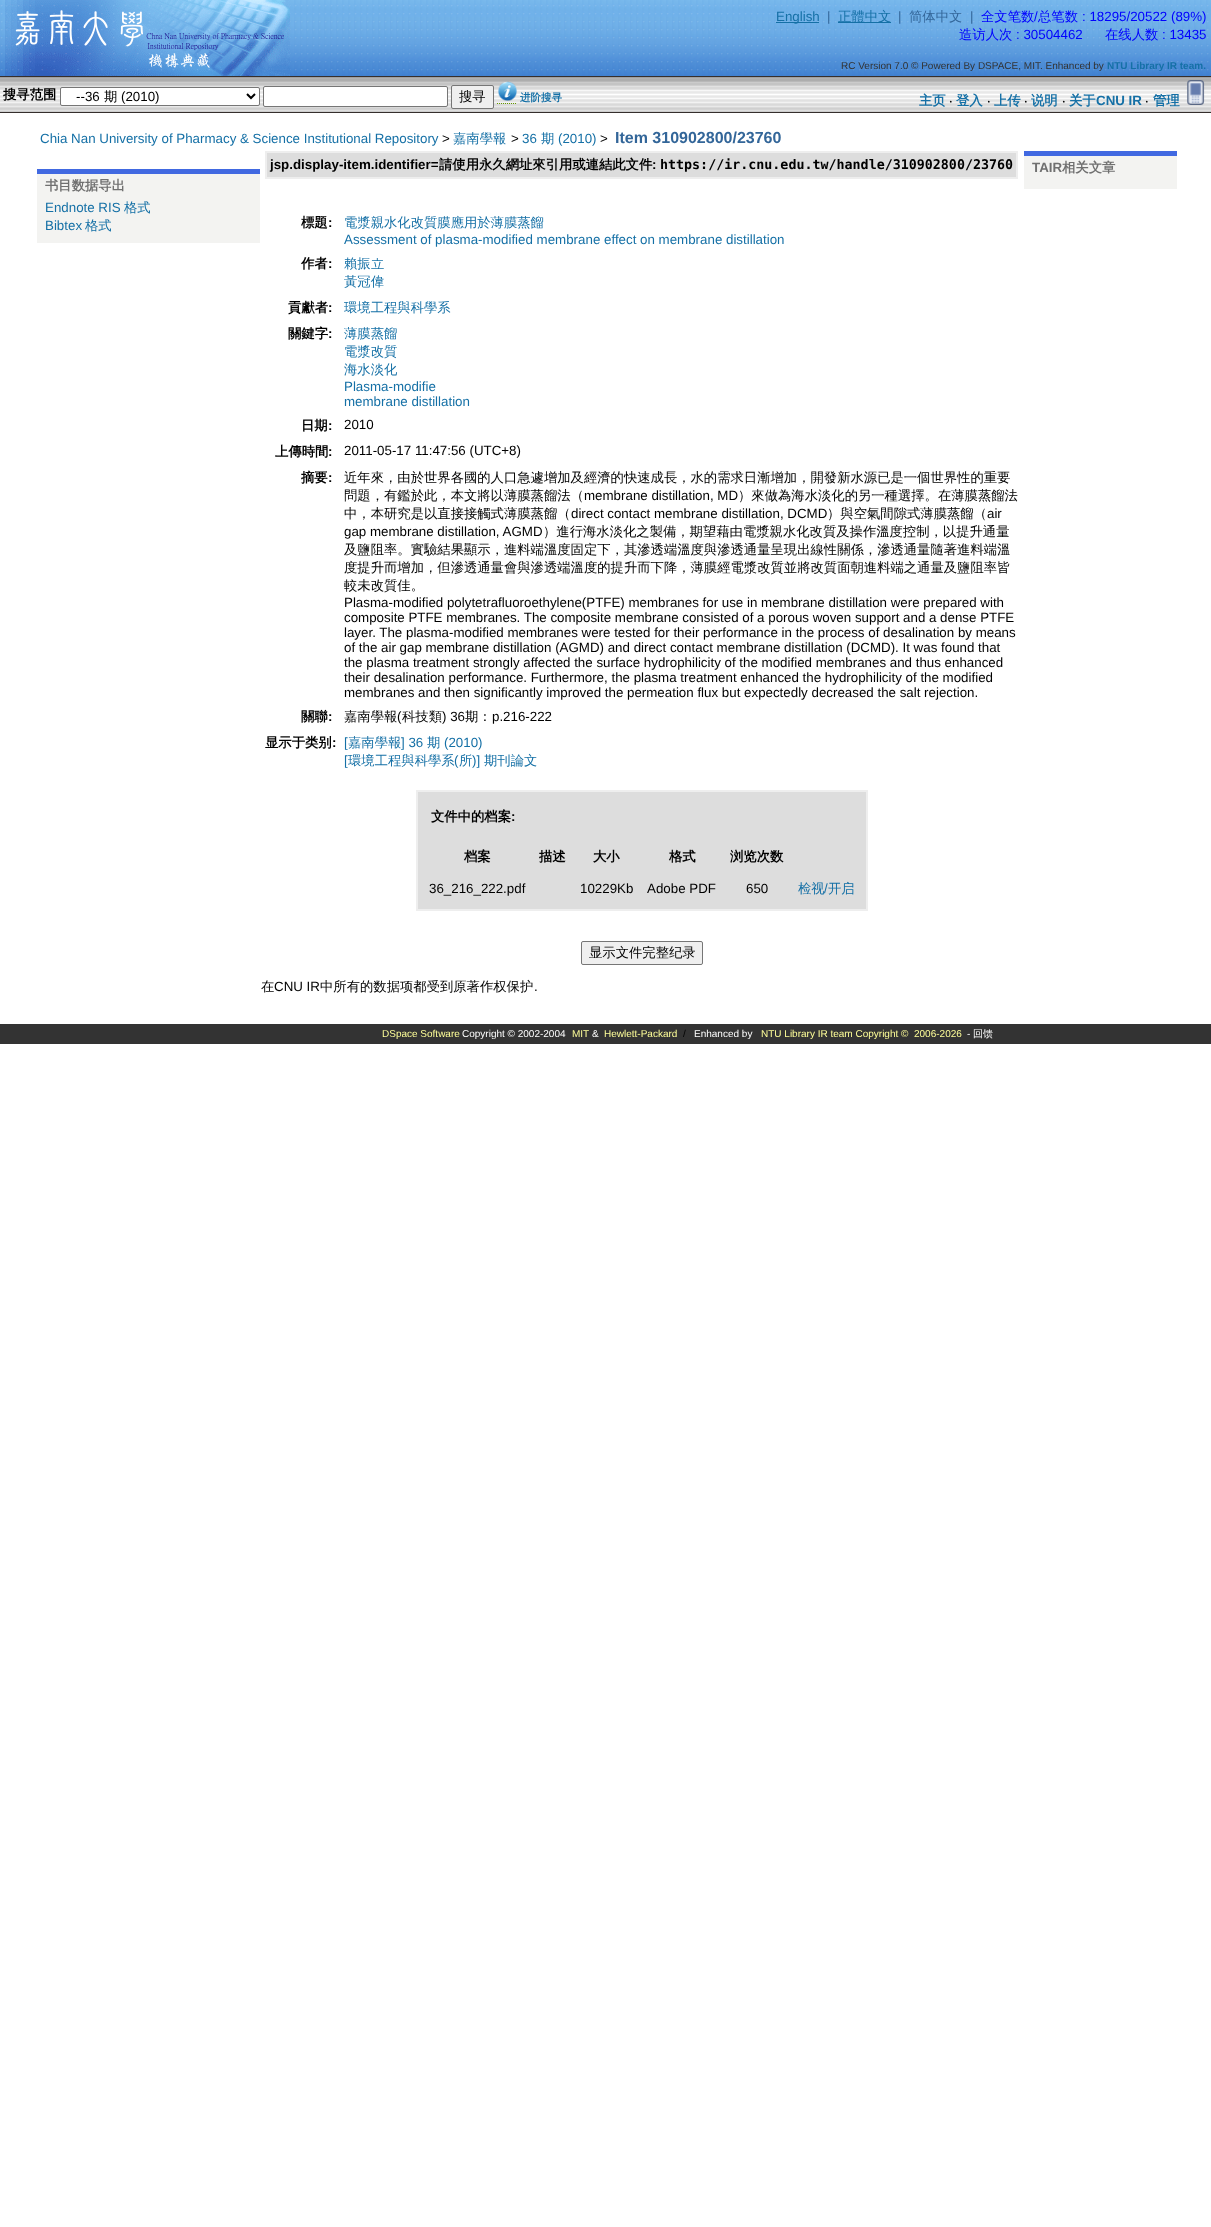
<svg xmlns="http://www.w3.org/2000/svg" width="1211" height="2227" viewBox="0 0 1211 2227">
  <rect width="100%" height="100%" fill="#fff"/>
  <image x="0" y="0" width="1211" height="76" href="img/1.png"/>
  <image x="5" y="0" width="285" height="76" href="img/2.png"/>
  <path d="M776 22h43v1H776z" fill="#1570a6"/>
  <path d="M838 22h53v1H838z" fill="#1570a6"/>
  <image x="0" y="76" width="1211" height="37" href="img/3.png"/>
  <rect x="60.5" y="87.5" width="199" height="18" rx="1.5" fill="#fff" stroke="#767676"/>
  <path d="M247 94L251 98L255 94" fill="none" stroke="#000" stroke-width="2"/>
  <rect x="263.5" y="86.5" width="184" height="20" rx="1.5" fill="#fff" stroke="#767676"/>
  <rect x="451.5" y="85.5" width="42" height="23" rx="1.5" fill="#efefef" stroke="#767676"/>
  <image x="498" y="81" width="19" height="20" href="img/4.png"/>
  <path d="M497 103.5H517" fill="none" stroke="#690" stroke-dasharray="1 1"/>
  <image x="1187" y="80" width="18" height="25" href="img/5.png"/>
  <path d="M265 151h753v28H265z" fill="#eee"/>
  <path d="M267 153h749v24H267z" fill="#ddd"/>
  <path d="M416 790h452v121H416z" fill="#eee"/>
  <path d="M418 792h448v117H418z" fill="#ddd"/>
  <rect x="581.5" y="941.5" width="121" height="23" rx="1.5" fill="#efefef" stroke="#767676"/>
  <path d="M1024 156h153v33H1024z" fill="#f3f3f1"/>
  <path d="M1024 151h153v5H1024z" fill="#4169e1"/>
  <path d="M37 174h223v69H37z" fill="#f3f3f1"/>
  <path d="M37 169h223v5H37z" fill="#4169e1"/>
  <path d="M0 1024h1211v20H0z" fill="#333"/>
  <text x="776" y="21" font-family="Liberation Sans" font-size="13.33" fill="#1570a6">English</text>
  <text x="827" y="21" font-family="Liberation Sans" font-size="13.33" fill="#369">|</text>
  <text x="838" y="21" font-family="WenQuanYi Zen Hei" font-size="13.33" font-weight="500" fill="#1570a6">正體中文</text>
  <text x="898" y="21" font-family="Liberation Sans" font-size="13.33" fill="#369">|</text>
  <text x="909" y="21" font-family="WenQuanYi Zen Hei" font-size="13.33" font-weight="500" fill="#369">简体中文</text>
  <text x="970" y="21" font-family="Liberation Sans" font-size="13.33" fill="#369">|</text>
  <text x="981" y="21" font-family="WenQuanYi Zen Hei" font-size="13.33" font-weight="500" fill="#00f">全文笔数</text>
  <text x="1034" y="21" font-family="Liberation Sans" font-size="13.33" fill="#00f">/</text>
  <text x="1038" y="21" font-family="WenQuanYi Zen Hei" font-size="13.33" font-weight="500" fill="#00f">总笔数</text>
  <text x="1082" y="21" font-family="Liberation Sans" font-size="13.33" fill="#00f">: 18295/20522 (89%)</text>
  <text x="959" y="39" font-family="WenQuanYi Zen Hei" font-size="13.33" font-weight="500" fill="#00f">造访人次</text>
  <text x="1016" y="39" font-family="Liberation Sans" font-size="13.33" fill="#00f">: 30504462</text>
  <text x="1105" y="39" font-family="WenQuanYi Zen Hei" font-size="13.33" font-weight="500" fill="#00f">在线人数</text>
  <text x="1162" y="39" font-family="Liberation Sans" font-size="13.33" fill="#00f">: 13435</text>
  <text x="841" y="69" font-family="Liberation Sans" font-size="10" fill="#333">RC Version 7.0 © Powered By DSPACE, MIT. Enhanced by</text>
  <text x="1107" y="69" font-family="Liberation Sans" font-size="10" font-weight="bold" fill="#1570a6">NTU Library IR team.</text>
  <text x="3" y="99" font-family="WenQuanYi Zen Hei" font-size="13.33" font-weight="bold" fill="#000">搜寻范围</text>
  <text x="76" y="101" font-family="Liberation Sans" font-size="13.33" fill="#000">--36</text>
  <text x="104" y="101" font-family="WenQuanYi Zen Hei" font-size="13.33" font-weight="500" fill="#000">期</text>
  <text x="121" y="101" font-family="Liberation Sans" font-size="13.33" fill="#000">(2010)</text>
  <text x="459" y="101" font-family="WenQuanYi Zen Hei" font-size="13.33" font-weight="500" fill="#000">搜寻</text>
  <text x="520" y="101" font-family="WenQuanYi Zen Hei" font-size="10.5" font-weight="bold" fill="#1570a6">进阶搜寻</text>
  <text x="919" y="105" font-family="WenQuanYi Zen Hei" font-size="13.33" font-weight="bold" fill="#1570a6">主页</text>
  <text x="949" y="105" font-family="Noto Sans" font-size="13.33" fill="#000">‧</text>
  <text x="956" y="105" font-family="WenQuanYi Zen Hei" font-size="13.33" font-weight="bold" fill="#1570a6">登入</text>
  <text x="987" y="105" font-family="Noto Sans" font-size="13.33" fill="#000">‧</text>
  <text x="994" y="105" font-family="WenQuanYi Zen Hei" font-size="13.33" font-weight="bold" fill="#1570a6">上传</text>
  <text x="1024" y="105" font-family="Noto Sans" font-size="13.33" fill="#000">‧</text>
  <text x="1031" y="105" font-family="WenQuanYi Zen Hei" font-size="13.33" font-weight="bold" fill="#1570a6">说明</text>
  <text x="1062" y="105" font-family="Noto Sans" font-size="13.33" fill="#000">‧</text>
  <text x="1069" y="105" font-family="WenQuanYi Zen Hei" font-size="13.33" font-weight="bold" fill="#1570a6">关于</text>
  <text x="1096" y="105" font-family="Liberation Sans" font-size="13.33" font-weight="bold" fill="#1570a6">CNU IR</text>
  <text x="1145" y="105" font-family="Noto Sans" font-size="13.33" fill="#000">‧</text>
  <text x="1153" y="105" font-family="WenQuanYi Zen Hei" font-size="13.33" font-weight="bold" fill="#1570a6">管理</text>
  <text x="40" y="143" font-family="Liberation Sans" font-size="13.33" fill="#1570a6">Chia Nan University of Pharmacy &amp; Science Institutional Repository</text>
  <text x="442" y="143" font-family="Liberation Sans" font-size="13.33" fill="#000">&gt;</text>
  <text x="453" y="143" font-family="WenQuanYi Zen Hei" font-size="13.33" font-weight="500" fill="#1570a6">嘉南學報</text>
  <text x="511" y="143" font-family="Liberation Sans" font-size="13.33" fill="#000">&gt;</text>
  <text x="522" y="143" font-family="Liberation Sans" font-size="13.33" fill="#1570a6">36</text>
  <text x="541" y="143" font-family="WenQuanYi Zen Hei" font-size="13.33" font-weight="500" fill="#1570a6">期</text>
  <text x="558" y="143" font-family="Liberation Sans" font-size="13.33" fill="#1570a6">(2010)</text>
  <text x="600" y="143" font-family="Liberation Sans" font-size="13.33" fill="#000">&gt;</text>
  <text x="615" y="143" font-family="Liberation Sans" font-size="16" font-weight="bold" fill="#369">Item 310902800/23760</text>
  <text x="270" y="169" font-family="Liberation Sans" font-size="13.33" font-weight="bold" fill="#000">jsp.display-item.identifier=</text>
  <text x="439" y="169" font-family="WenQuanYi Zen Hei" font-size="13.33" font-weight="bold" fill="#000">請使用永久網址來引用或連結此文件</text>
  <text x="652" y="169" font-family="Liberation Sans" font-size="13.33" font-weight="bold" fill="#000">:</text>
  <text x="660" y="169" font-family="DejaVu Sans Mono" font-size="13.33" font-weight="bold" fill="#000">https://ir.cnu.edu.tw/handle/310902800/23760</text>
  <text x="301" y="227" font-family="WenQuanYi Zen Hei" font-size="13.33" font-weight="bold" fill="#000">標題</text>
  <text x="328" y="227" font-family="Liberation Sans" font-size="13.33" font-weight="bold" fill="#000">:</text>
  <text x="344" y="227" font-family="WenQuanYi Zen Hei" font-size="13.33" font-weight="500" fill="#1570a6">電漿親水化改質膜應用於薄膜蒸餾</text>
  <text x="344" y="244" font-family="Liberation Sans" font-size="13.33" fill="#1570a6">Assessment of plasma-modified membrane effect on membrane distillation</text>
  <text x="301" y="268" font-family="WenQuanYi Zen Hei" font-size="13.33" font-weight="bold" fill="#000">作者</text>
  <text x="328" y="268" font-family="Liberation Sans" font-size="13.33" font-weight="bold" fill="#000">:</text>
  <g font-family="WenQuanYi Zen Hei" font-size="13.33" font-weight="500" fill="#1570a6">
    <text x="344" y="268">賴振立</text>
    <text x="344" y="286">黃冠偉</text>
  </g>
  <text x="288" y="312" font-family="WenQuanYi Zen Hei" font-size="13.33" font-weight="bold" fill="#000">貢獻者</text>
  <text x="328" y="312" font-family="Liberation Sans" font-size="13.33" font-weight="bold" fill="#000">:</text>
  <text x="344" y="312" font-family="WenQuanYi Zen Hei" font-size="13.33" font-weight="500" fill="#1570a6">環境工程與科學系</text>
  <text x="288" y="338" font-family="WenQuanYi Zen Hei" font-size="13.33" font-weight="bold" fill="#000">關鍵字</text>
  <text x="328" y="338" font-family="Liberation Sans" font-size="13.33" font-weight="bold" fill="#000">:</text>
  <g font-family="WenQuanYi Zen Hei" font-size="13.33" font-weight="500" fill="#1570a6">
    <text x="344" y="338">薄膜蒸餾</text>
    <text x="344" y="356">電漿改質</text>
    <text x="344" y="374">海水淡化</text>
  </g>
  <g font-family="Liberation Sans" font-size="13.33" fill="#1570a6">
    <text x="344" y="391">Plasma-modifie</text>
    <text x="344" y="406">membrane distillation</text>
  </g>
  <text x="301" y="430" font-family="WenQuanYi Zen Hei" font-size="13.33" font-weight="bold" fill="#000">日期</text>
  <text x="328" y="430" font-family="Liberation Sans" font-size="13.33" font-weight="bold" fill="#000">:</text>
  <text x="344" y="429" font-family="Liberation Sans" font-size="13.33" fill="#000">2010</text>
  <text x="275" y="456" font-family="WenQuanYi Zen Hei" font-size="13.33" font-weight="bold" fill="#000">上傳時間</text>
  <text x="328" y="456" font-family="Liberation Sans" font-size="13.33" font-weight="bold" fill="#000">:</text>
  <text x="344" y="455" font-family="Liberation Sans" font-size="13.33" fill="#000">2011-05-17 11:47:56 (UTC+8)</text>
  <text x="301" y="482" font-family="WenQuanYi Zen Hei" font-size="13.33" font-weight="bold" fill="#000">摘要</text>
  <text x="328" y="482" font-family="Liberation Sans" font-size="13.33" font-weight="bold" fill="#000">:</text>
  <g font-family="WenQuanYi Zen Hei" font-size="13.33" font-weight="500" fill="#000">
    <text x="344" y="482">近年來，由於世界各國的人口急遽增加及經濟的快速成長，水的需求日漸增加，開發新水源已是一個世界性的重要</text>
    <text x="344" y="500">問題，有鑑於此，本文將以薄膜蒸餾法（</text>
  </g>
  <text x="584" y="500" font-family="Liberation Sans" font-size="13.33" fill="#000">membrane distillation, MD</text>
  <g font-family="WenQuanYi Zen Hei" font-size="13.33" font-weight="500" fill="#000">
    <text x="738" y="500">）來做為海水淡化的另一種選擇。在薄膜蒸餾法</text>
    <text x="344" y="518">中，本研究是以直接接觸式薄膜蒸餾（</text>
  </g>
  <text x="571" y="518" font-family="Liberation Sans" font-size="13.33" fill="#000">direct contact membrane distillation, DCMD</text>
  <text x="827" y="518" font-family="WenQuanYi Zen Hei" font-size="13.33" font-weight="500" fill="#000">）與空氣間隙式薄膜蒸餾（</text>
  <g font-family="Liberation Sans" font-size="13.33" fill="#000">
    <text x="987" y="518">air</text>
    <text x="344" y="536">gap membrane distillation, AGMD</text>
  </g>
  <g font-family="WenQuanYi Zen Hei" font-size="13.33" font-weight="500" fill="#000">
    <text x="543" y="536">）進行海水淡化之製備，期望藉由電漿親水化改質及操作溫度控制，以提升通量</text>
    <text x="344" y="554">及鹽阻率。實驗結果顯示，進料端溫度固定下，其滲透端溫度與滲透通量呈現出線性關係，滲透通量隨著進料端溫</text>
    <text x="344" y="572">度提升而增加，但滲透通量會與滲透端溫度的提升而下降，薄膜經電漿改質並將改質面朝進料端之通量及鹽阻率皆</text>
    <text x="344" y="590">較未改質佳。</text>
  </g>
  <g font-family="Liberation Sans" font-size="13.33" fill="#000">
    <text x="344" y="607">Plasma-modified polytetrafluoroethylene(PTFE) membranes for use in membrane distillation were prepared with</text>
    <text x="344" y="622">composite PTFE membranes. The composite membrane consisted of a porous woven support and a dense PTFE</text>
    <text x="344" y="637">layer. The plasma-modified membranes were tested for their performance in the process of desalination by means</text>
    <text x="344" y="652">of the air gap membrane distillation (AGMD) and direct contact membrane distillation (DCMD). It was found that</text>
    <text x="344" y="667">the plasma treatment strongly affected the surface hydrophilicity of the modified membranes and thus enhanced</text>
    <text x="344" y="682">their desalination performance. Furthermore, the plasma treatment enhanced the hydrophilicity of the modified</text>
    <text x="344" y="697">membranes and then significantly improved the permeation flux but expectedly decreased the salt rejection.</text>
  </g>
  <text x="301" y="721" font-family="WenQuanYi Zen Hei" font-size="13.33" font-weight="bold" fill="#000">關聯</text>
  <text x="328" y="721" font-family="Liberation Sans" font-size="13.33" font-weight="bold" fill="#000">:</text>
  <text x="344" y="721" font-family="WenQuanYi Zen Hei" font-size="13.33" font-weight="500" fill="#000">嘉南學報</text>
  <text x="397" y="721" font-family="Liberation Sans" font-size="13.33" fill="#000">(</text>
  <text x="402" y="721" font-family="WenQuanYi Zen Hei" font-size="13.33" font-weight="500" fill="#000">科技類</text>
  <text x="442" y="721" font-family="Liberation Sans" font-size="13.33" fill="#000">) 36</text>
  <text x="465" y="721" font-family="WenQuanYi Zen Hei" font-size="13.33" font-weight="500" fill="#000">期：</text>
  <text x="492" y="721" font-family="Liberation Sans" font-size="13.33" fill="#000">p.216-222</text>
  <text x="265" y="747" font-family="WenQuanYi Zen Hei" font-size="13.33" font-weight="bold" fill="#000">显示于类别</text>
  <text x="332" y="747" font-family="Liberation Sans" font-size="13.33" font-weight="bold" fill="#000">:</text>
  <text x="344" y="747" font-family="Liberation Sans" font-size="13.33" fill="#1570a6">[</text>
  <text x="348" y="747" font-family="WenQuanYi Zen Hei" font-size="13.33" font-weight="500" fill="#1570a6">嘉南學報</text>
  <text x="401" y="747" font-family="Liberation Sans" font-size="13.33" fill="#1570a6">] 36</text>
  <text x="427" y="747" font-family="WenQuanYi Zen Hei" font-size="13.33" font-weight="500" fill="#1570a6">期</text>
  <g font-family="Liberation Sans" font-size="13.33" fill="#1570a6">
    <text x="444" y="747">(2010)</text>
    <text x="344" y="765">[</text>
  </g>
  <text x="348" y="765" font-family="WenQuanYi Zen Hei" font-size="13.33" font-weight="500" fill="#1570a6">環境工程與科學系</text>
  <text x="454" y="765" font-family="Liberation Sans" font-size="13.33" fill="#1570a6">(</text>
  <text x="459" y="765" font-family="WenQuanYi Zen Hei" font-size="13.33" font-weight="500" fill="#1570a6">所</text>
  <text x="472" y="765" font-family="Liberation Sans" font-size="13.33" fill="#1570a6">)]</text>
  <text x="484" y="765" font-family="WenQuanYi Zen Hei" font-size="13.33" font-weight="500" fill="#1570a6">期刊論文</text>
  <text x="431" y="821" font-family="WenQuanYi Zen Hei" font-size="13.33" font-weight="bold" fill="#000">文件中的档案</text>
  <text x="511" y="821" font-family="Liberation Sans" font-size="13.33" font-weight="bold" fill="#000">:</text>
  <g font-family="WenQuanYi Zen Hei" font-size="13.33" font-weight="bold" fill="#000">
    <text x="464" y="861">档案</text>
    <text x="539" y="861">描述</text>
    <text x="593" y="861">大小</text>
    <text x="669" y="861">格式</text>
    <text x="730" y="861">浏览次数</text>
  </g>
  <g font-family="Liberation Sans" font-size="13.33" fill="#000">
    <text x="429" y="893">36_216_222.pdf</text>
    <text x="580" y="893">10229Kb</text>
    <text x="647" y="893">Adobe PDF</text>
    <text x="746" y="893">650</text>
  </g>
  <text x="798" y="893" font-family="WenQuanYi Zen Hei" font-size="13.33" font-weight="500" fill="#1570a6">检视</text>
  <text x="824" y="893" font-family="Liberation Sans" font-size="13.33" fill="#1570a6">/</text>
  <text x="828" y="893" font-family="WenQuanYi Zen Hei" font-size="13.33" font-weight="500" fill="#1570a6">开启</text>
  <g font-family="WenQuanYi Zen Hei" font-size="13.33" font-weight="500" fill="#000">
    <text x="589" y="957">显示文件完整纪录</text>
    <text x="261" y="991">在</text>
  </g>
  <text x="274" y="991" font-family="Liberation Sans" font-size="13.33" fill="#000">CNU IR</text>
  <text x="320" y="991" font-family="WenQuanYi Zen Hei" font-size="13.33" font-weight="500" fill="#000">中所有的数据项都受到原著作权保护</text>
  <text x="534" y="991" font-family="Liberation Sans" font-size="13.33" fill="#000">.</text>
  <text x="1032" y="172" font-family="Liberation Sans" font-size="13.33" font-weight="bold" fill="#707070">TAIR</text>
  <g font-family="WenQuanYi Zen Hei" font-size="13.33" font-weight="bold" fill="#707070">
    <text x="1062" y="172">相关文章</text>
    <text x="45" y="190">书目数据导出</text>
  </g>
  <text x="45" y="212" font-family="Liberation Sans" font-size="13.33" fill="#1570a6">Endnote RIS</text>
  <text x="124" y="212" font-family="WenQuanYi Zen Hei" font-size="13.33" font-weight="500" fill="#1570a6">格式</text>
  <text x="45" y="230" font-family="Liberation Sans" font-size="13.33" fill="#1570a6">Bibtex</text>
  <text x="85" y="230" font-family="WenQuanYi Zen Hei" font-size="13.33" font-weight="500" fill="#1570a6">格式</text>
  <text x="382" y="1037" font-family="Liberation Sans" font-size="10" fill="#ff9">DSpace Software</text>
  <text x="462" y="1037" font-family="Liberation Sans" font-size="10" fill="#fff">Copyright © 2002-2004</text>
  <text x="572" y="1037" font-family="Liberation Sans" font-size="10" fill="#ff9">MIT</text>
  <text x="592" y="1037" font-family="Liberation Sans" font-size="10" fill="#fff">&amp;</text>
  <text x="604" y="1037" font-family="Liberation Sans" font-size="10" fill="#ff9">Hewlett-Packard</text>
  <text x="683" y="1037" font-family="Liberation Sans" font-size="10" fill="#000">/</text>
  <text x="694" y="1037" font-family="Liberation Sans" font-size="10" fill="#fff">Enhanced by</text>
  <g font-family="Liberation Sans" font-size="10" fill="#ff9">
    <text x="761" y="1037">NTU Library IR team Copyright ©</text>
    <text x="914" y="1037">2006-2026</text>
  </g>
  <text x="967" y="1037" font-family="Liberation Sans" font-size="10" fill="#fff">-</text>
  <text x="973" y="1037" font-family="WenQuanYi Zen Hei" font-size="10" font-weight="500" fill="#fff">回馈</text>
</svg>
